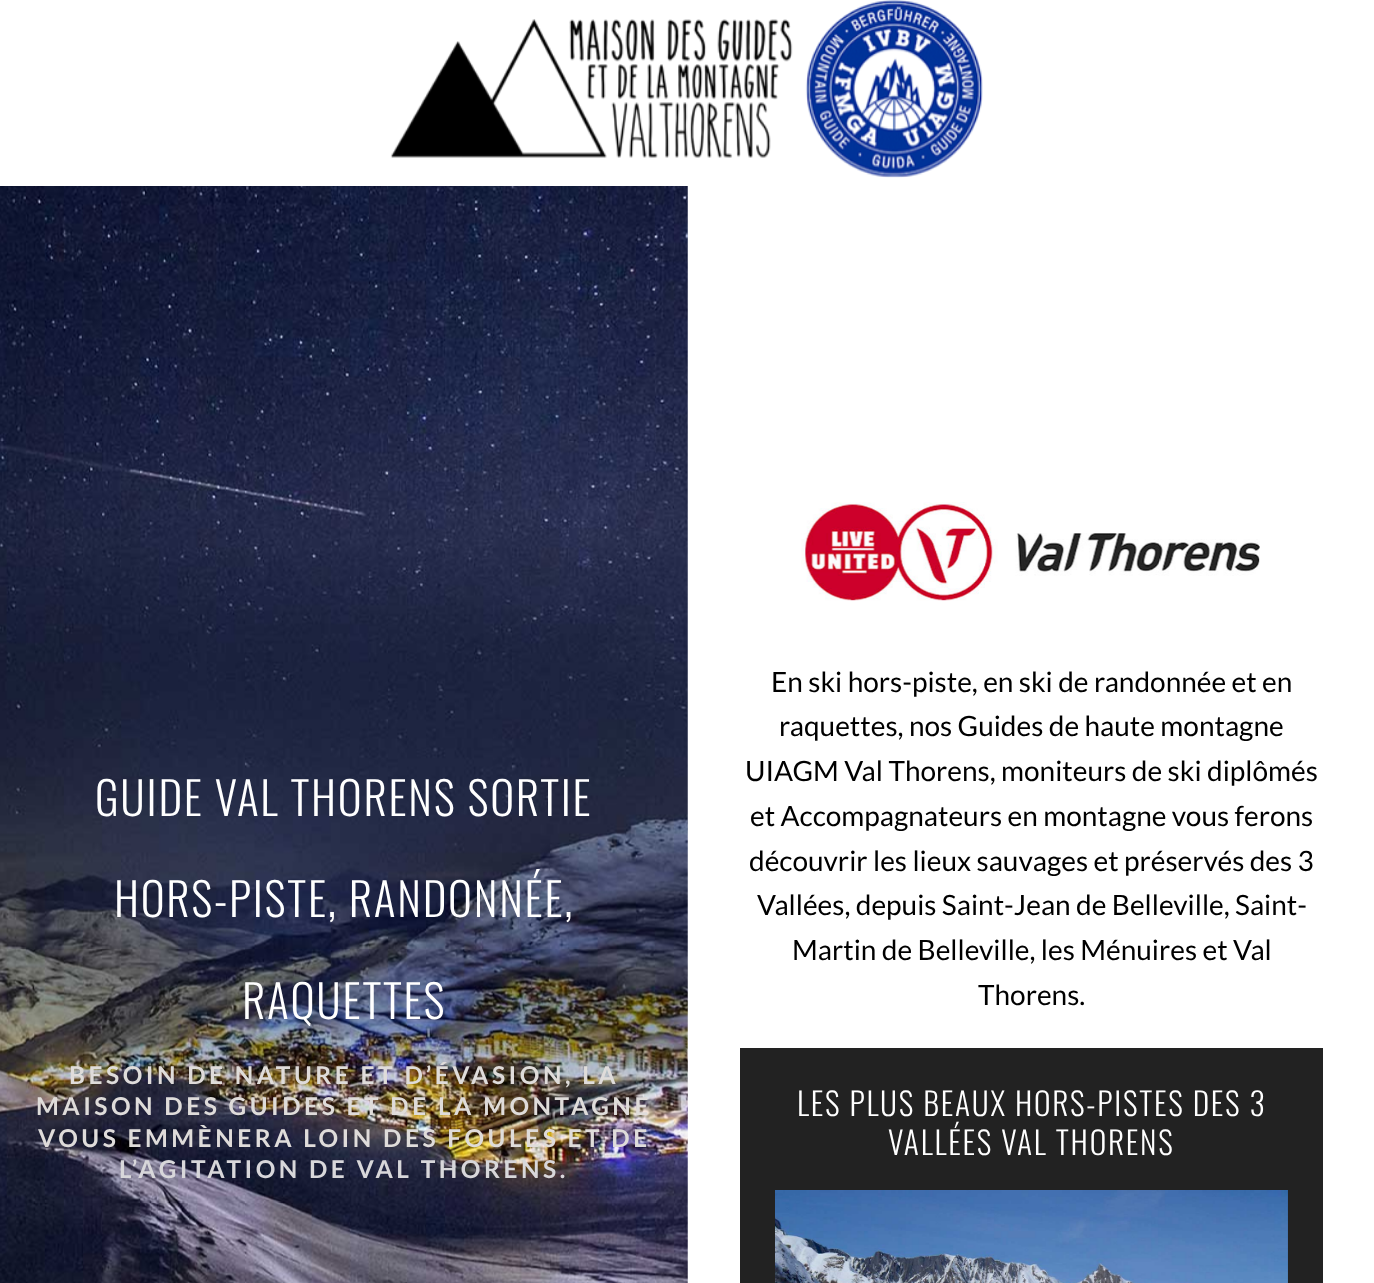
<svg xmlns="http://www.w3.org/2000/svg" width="1374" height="1283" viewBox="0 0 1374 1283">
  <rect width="100%" height="100%" fill="#fff"/>
  <image x="390" y="0" width="593" height="178" href="img/1.png"/>
  <image x="0" y="186" width="688" height="1097" href="img/2.png"/>
  <image x="801" y="502" width="459" height="99" href="img/3.png"/>
  <path d="M740 1048h583v235H740z" fill="#222"/>
  <image x="775" y="1190" width="513" height="93" href="img/4.png"/>
  <g font-family="Oswald" font-size="45.5" font-weight="300" letter-spacing="1.75" fill="#fff">
    <text x="95" y="816">GUIDE VAL THORENS SORTIE</text>
    <text x="114" y="917">HORS-PISTE, RANDONNÉE,</text>
    <text x="242" y="1019">RAQUETTES</text>
  </g>
  <g font-family="Lato" font-size="24.5" font-weight="bold" letter-spacing="3.5" fill="#dfdcda">
    <text x="69" y="1084">BESOIN DE NATURE ET D’ÉVASION, LA</text>
    <text x="36" y="1115">MAISON DES GUIDES ET DE LA MONTAGNE</text>
    <text x="38" y="1147">VOUS EMMÈNERA LOIN DES FOULES ET DE</text>
  </g>
  <text x="119" y="1178" font-family="Lato" font-size="24.5" font-weight="bold" letter-spacing="3.5" fill="#d8d7da">L’AGITATION DE VAL THORENS.</text>
  <g font-family="Lato" font-size="28" fill="#000">
    <text x="771" y="692">En ski hors-piste, en ski de randonnée et en</text>
    <text x="779" y="736">raquettes, nos Guides de haute montagne</text>
    <text x="745" y="781">UIAGM Val Thorens, moniteurs de ski diplômés</text>
    <text x="750" y="826">et Accompagnateurs en montagne vous ferons</text>
    <text x="749" y="871">découvrir les lieux sauvages et préservés des 3</text>
    <text x="757" y="915">Vallées, depuis Saint-Jean de Belleville, Saint-</text>
    <text x="792" y="960">Martin de Belleville, les Ménuires et Val</text>
    <text x="978" y="1005">Thorens.</text>
  </g>
  <g font-family="Oswald" font-size="31.5" font-weight="300" letter-spacing="1.75" fill="#fff">
    <text x="797" y="1116">LES PLUS BEAUX HORS-PISTES DES 3</text>
    <text x="888" y="1155">VALLÉES VAL THORENS</text>
  </g>
</svg>
